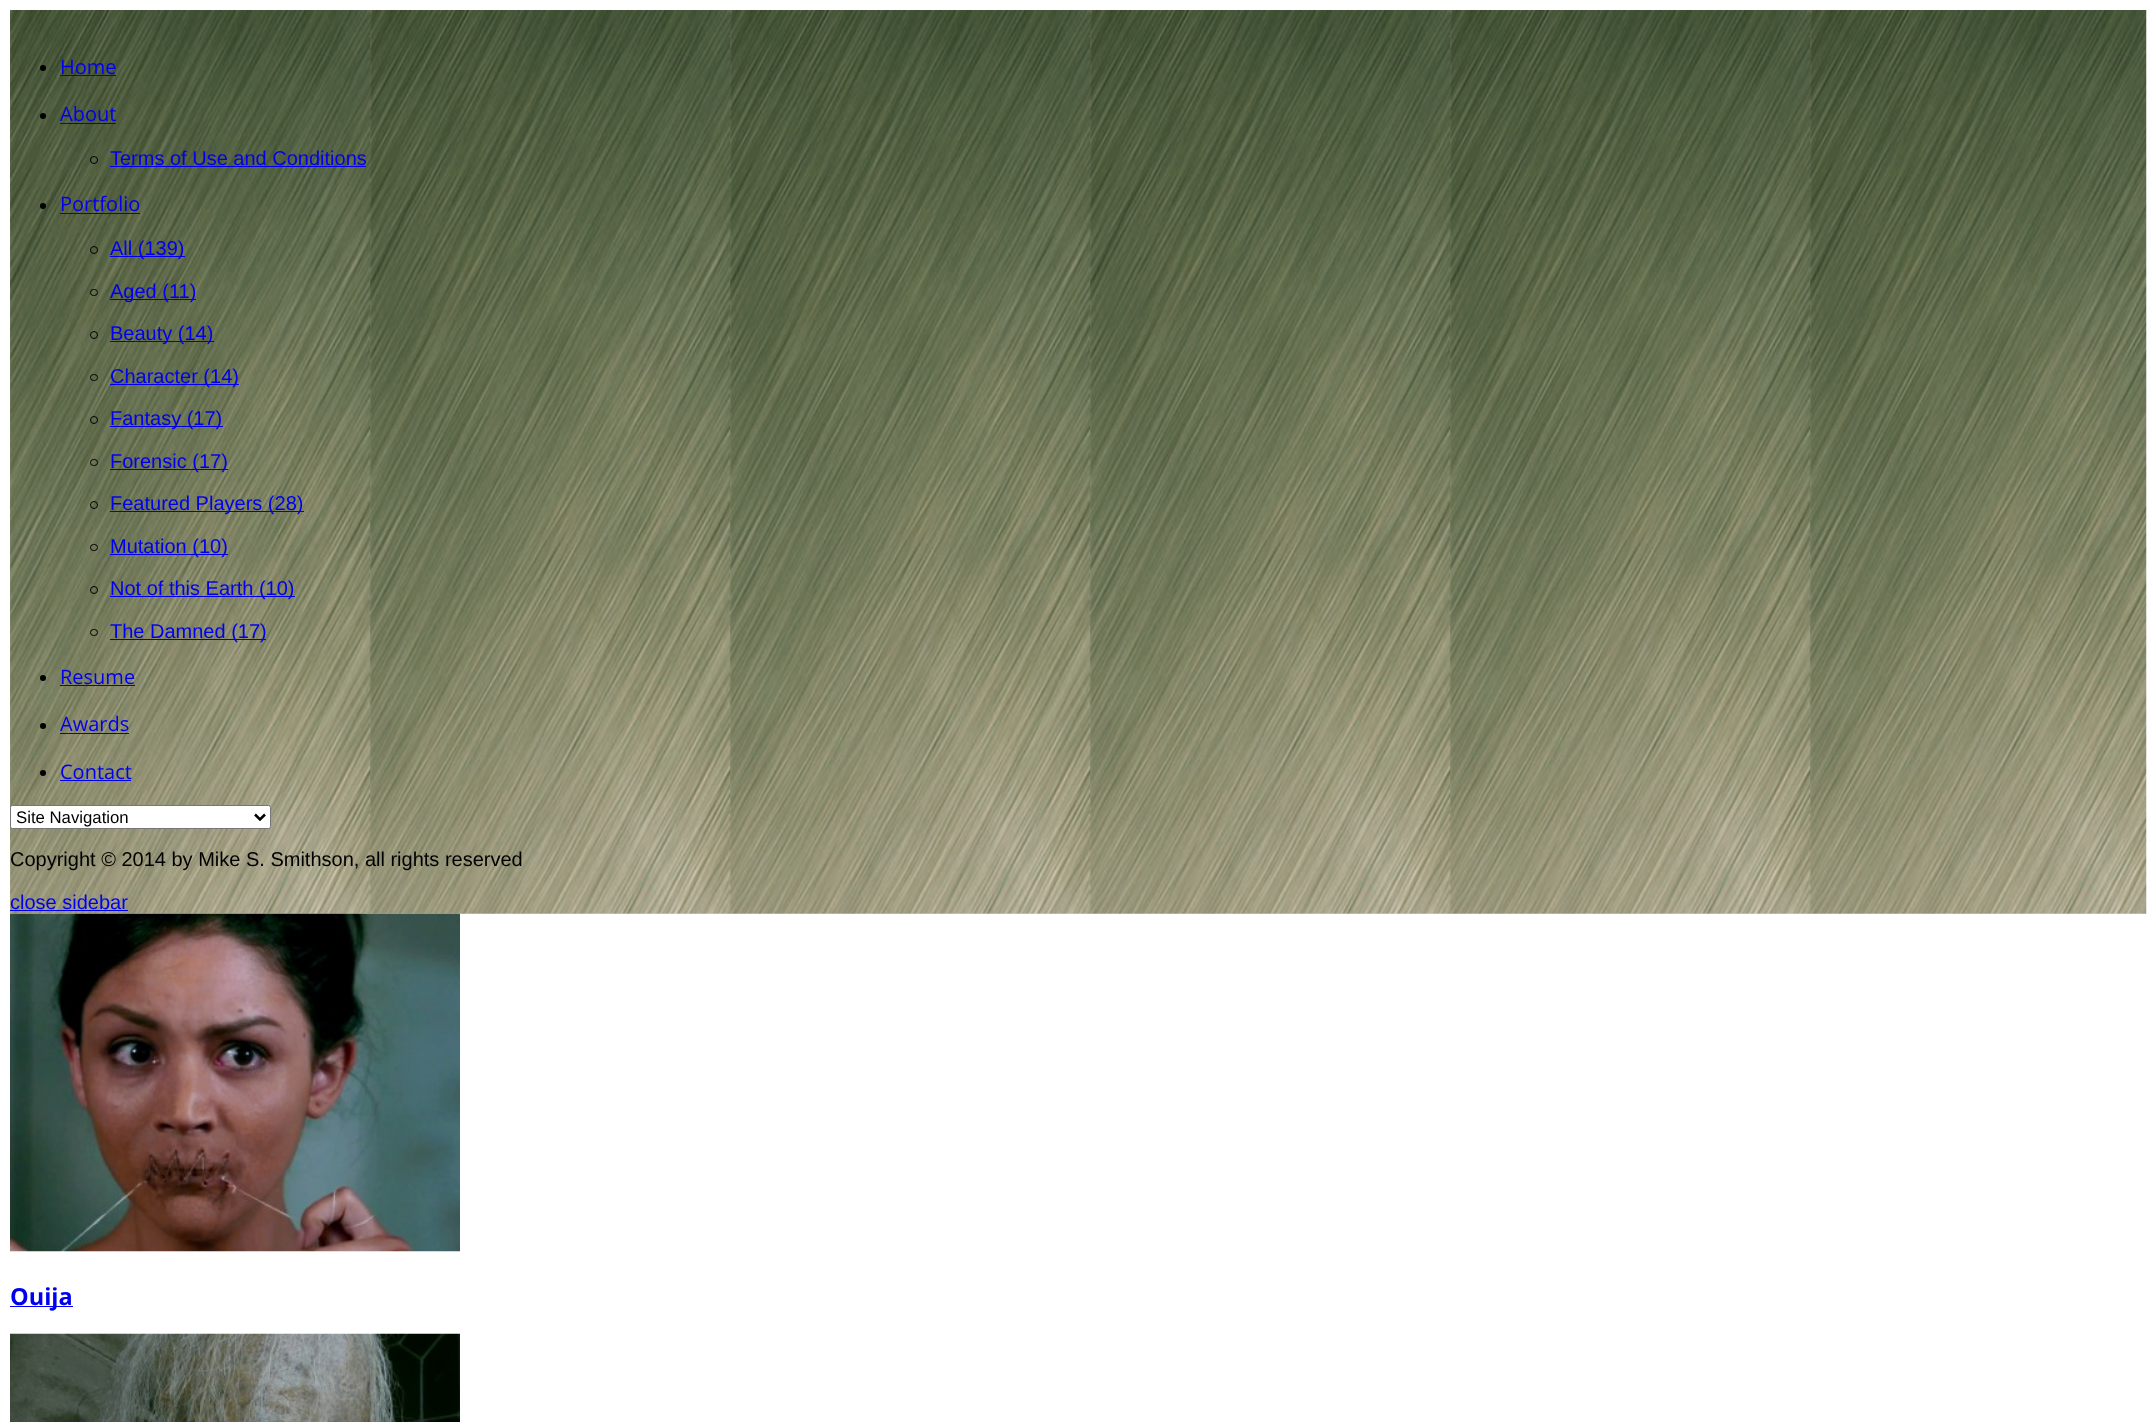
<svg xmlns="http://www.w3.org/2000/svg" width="2156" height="1422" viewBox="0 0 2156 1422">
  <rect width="100%" height="100%" fill="#fff"/>
  <image x="10" y="10" width="2137" height="904" href="img/1.png"/>
  <circle cx="43" cy="68" r="3" fill="#000"/>
  <path d="M60 75h56v1H60z" fill="#00e"/>
  <circle cx="43" cy="116" r="3" fill="#000"/>
  <path d="M60 123h56v1H60z" fill="#00e"/>
  <circle cx="94" cy="160" r="3.5" fill="none" stroke="#000"/>
  <path d="M110 166h256v1H110z" fill="#00e"/>
  <circle cx="43" cy="206" r="3" fill="#000"/>
  <path d="M60 213h80v1H60z" fill="#00e"/>
  <circle cx="94" cy="250" r="3.5" fill="none" stroke="#000"/>
  <path d="M110 256h75v1H110z" fill="#00e"/>
  <rect x="90.5" y="289.5" width="7" height="6" rx="3" fill="none" stroke="#000"/>
  <path d="M110 299h86v1H110z" fill="#00e"/>
  <circle cx="94" cy="335" r="3.5" fill="none" stroke="#000"/>
  <path d="M110 341h104v1H110z" fill="#00e"/>
  <rect x="90.5" y="374.5" width="7" height="6" rx="3" fill="none" stroke="#000"/>
  <path d="M110 384h129v1H110z" fill="#00e"/>
  <circle cx="94" cy="420" r="3.5" fill="none" stroke="#000"/>
  <path d="M110 426h113v1H110z" fill="#00e"/>
  <rect x="90.5" y="459.5" width="7" height="6" rx="3" fill="none" stroke="#000"/>
  <path d="M110 469h118v1H110z" fill="#00e"/>
  <circle cx="94" cy="505" r="3.5" fill="none" stroke="#000"/>
  <path d="M110 511h194v1H110z" fill="#00e"/>
  <rect x="90.5" y="544.5" width="7" height="6" rx="3" fill="none" stroke="#000"/>
  <path d="M110 554h118v1H110z" fill="#00e"/>
  <circle cx="94" cy="590" r="3.5" fill="none" stroke="#000"/>
  <path d="M110 596h185v1H110z" fill="#00e"/>
  <rect x="90.5" y="629.5" width="7" height="6" rx="3" fill="none" stroke="#000"/>
  <path d="M110 639h156v1H110z" fill="#00e"/>
  <circle cx="43" cy="678" r="3" fill="#000"/>
  <path d="M60 685h75v1H60z" fill="#00e"/>
  <circle cx="43" cy="726" r="3" fill="#000"/>
  <path d="M60 733h69v1H60z" fill="#00e"/>
  <circle cx="43" cy="773" r="3" fill="#000"/>
  <path d="M60 780h71v1H60z" fill="#00e"/>
  <rect x="10.5" y="805.5" width="260" height="23" rx="2" fill="#fff" stroke="#767676"/>
  <path d="M255 814.5L260 819.5L265 814.5" fill="none" stroke="#000" stroke-width="2.5"/>
  <path d="M10 910h118v1H10z" fill="#00e"/>
  <image x="10" y="913" width="450" height="339" href="img/2.png"/>
  <path d="M10 1306h63v1H10z" fill="#00e"/>
  <image x="10" y="1333" width="450" height="89" href="img/3.png"/>
  <g font-family="Open Sans" font-size="20" fill="#00e">
    <text x="60" y="74">Home</text>
    <text x="60" y="121">About</text>
  </g>
  <text x="110" y="165" font-family="Liberation Sans" font-size="20" fill="#00e">Terms of Use and Conditions</text>
  <text x="60" y="211" font-family="Open Sans" font-size="20" fill="#00e">Portfolio</text>
  <g font-family="Liberation Sans" font-size="20" fill="#00e">
    <text x="110" y="255">All (139)</text>
    <text x="110" y="298">Aged (11)</text>
    <text x="110" y="340">Beauty (14)</text>
    <text x="110" y="383">Character (14)</text>
    <text x="110" y="425">Fantasy (17)</text>
    <text x="110" y="468">Forensic (17)</text>
    <text x="110" y="510">Featured Players (28)</text>
    <text x="110" y="553">Mutation (10)</text>
    <text x="110" y="595">Not of this Earth (10)</text>
    <text x="110" y="638">The Damned (17)</text>
  </g>
  <g font-family="Open Sans" font-size="20" fill="#00e">
    <text x="60" y="684">Resume</text>
    <text x="60" y="731">Awards</text>
    <text x="60" y="779">Contact</text>
  </g>
  <text x="16" y="823" font-family="Liberation Sans" font-size="16.75" fill="#000">Site Navigation</text>
  <text x="10" y="866" font-family="Liberation Sans" font-size="20" fill="#000">Copyright © 2014 by Mike S. Smithson, all rights reserved</text>
  <text x="10" y="909" font-family="Liberation Sans" font-size="20" fill="#00e">close sidebar</text>
  <text x="10" y="1305" font-family="Open Sans" font-size="23.5" font-weight="bold" fill="#00e">Ouija</text>
</svg>
